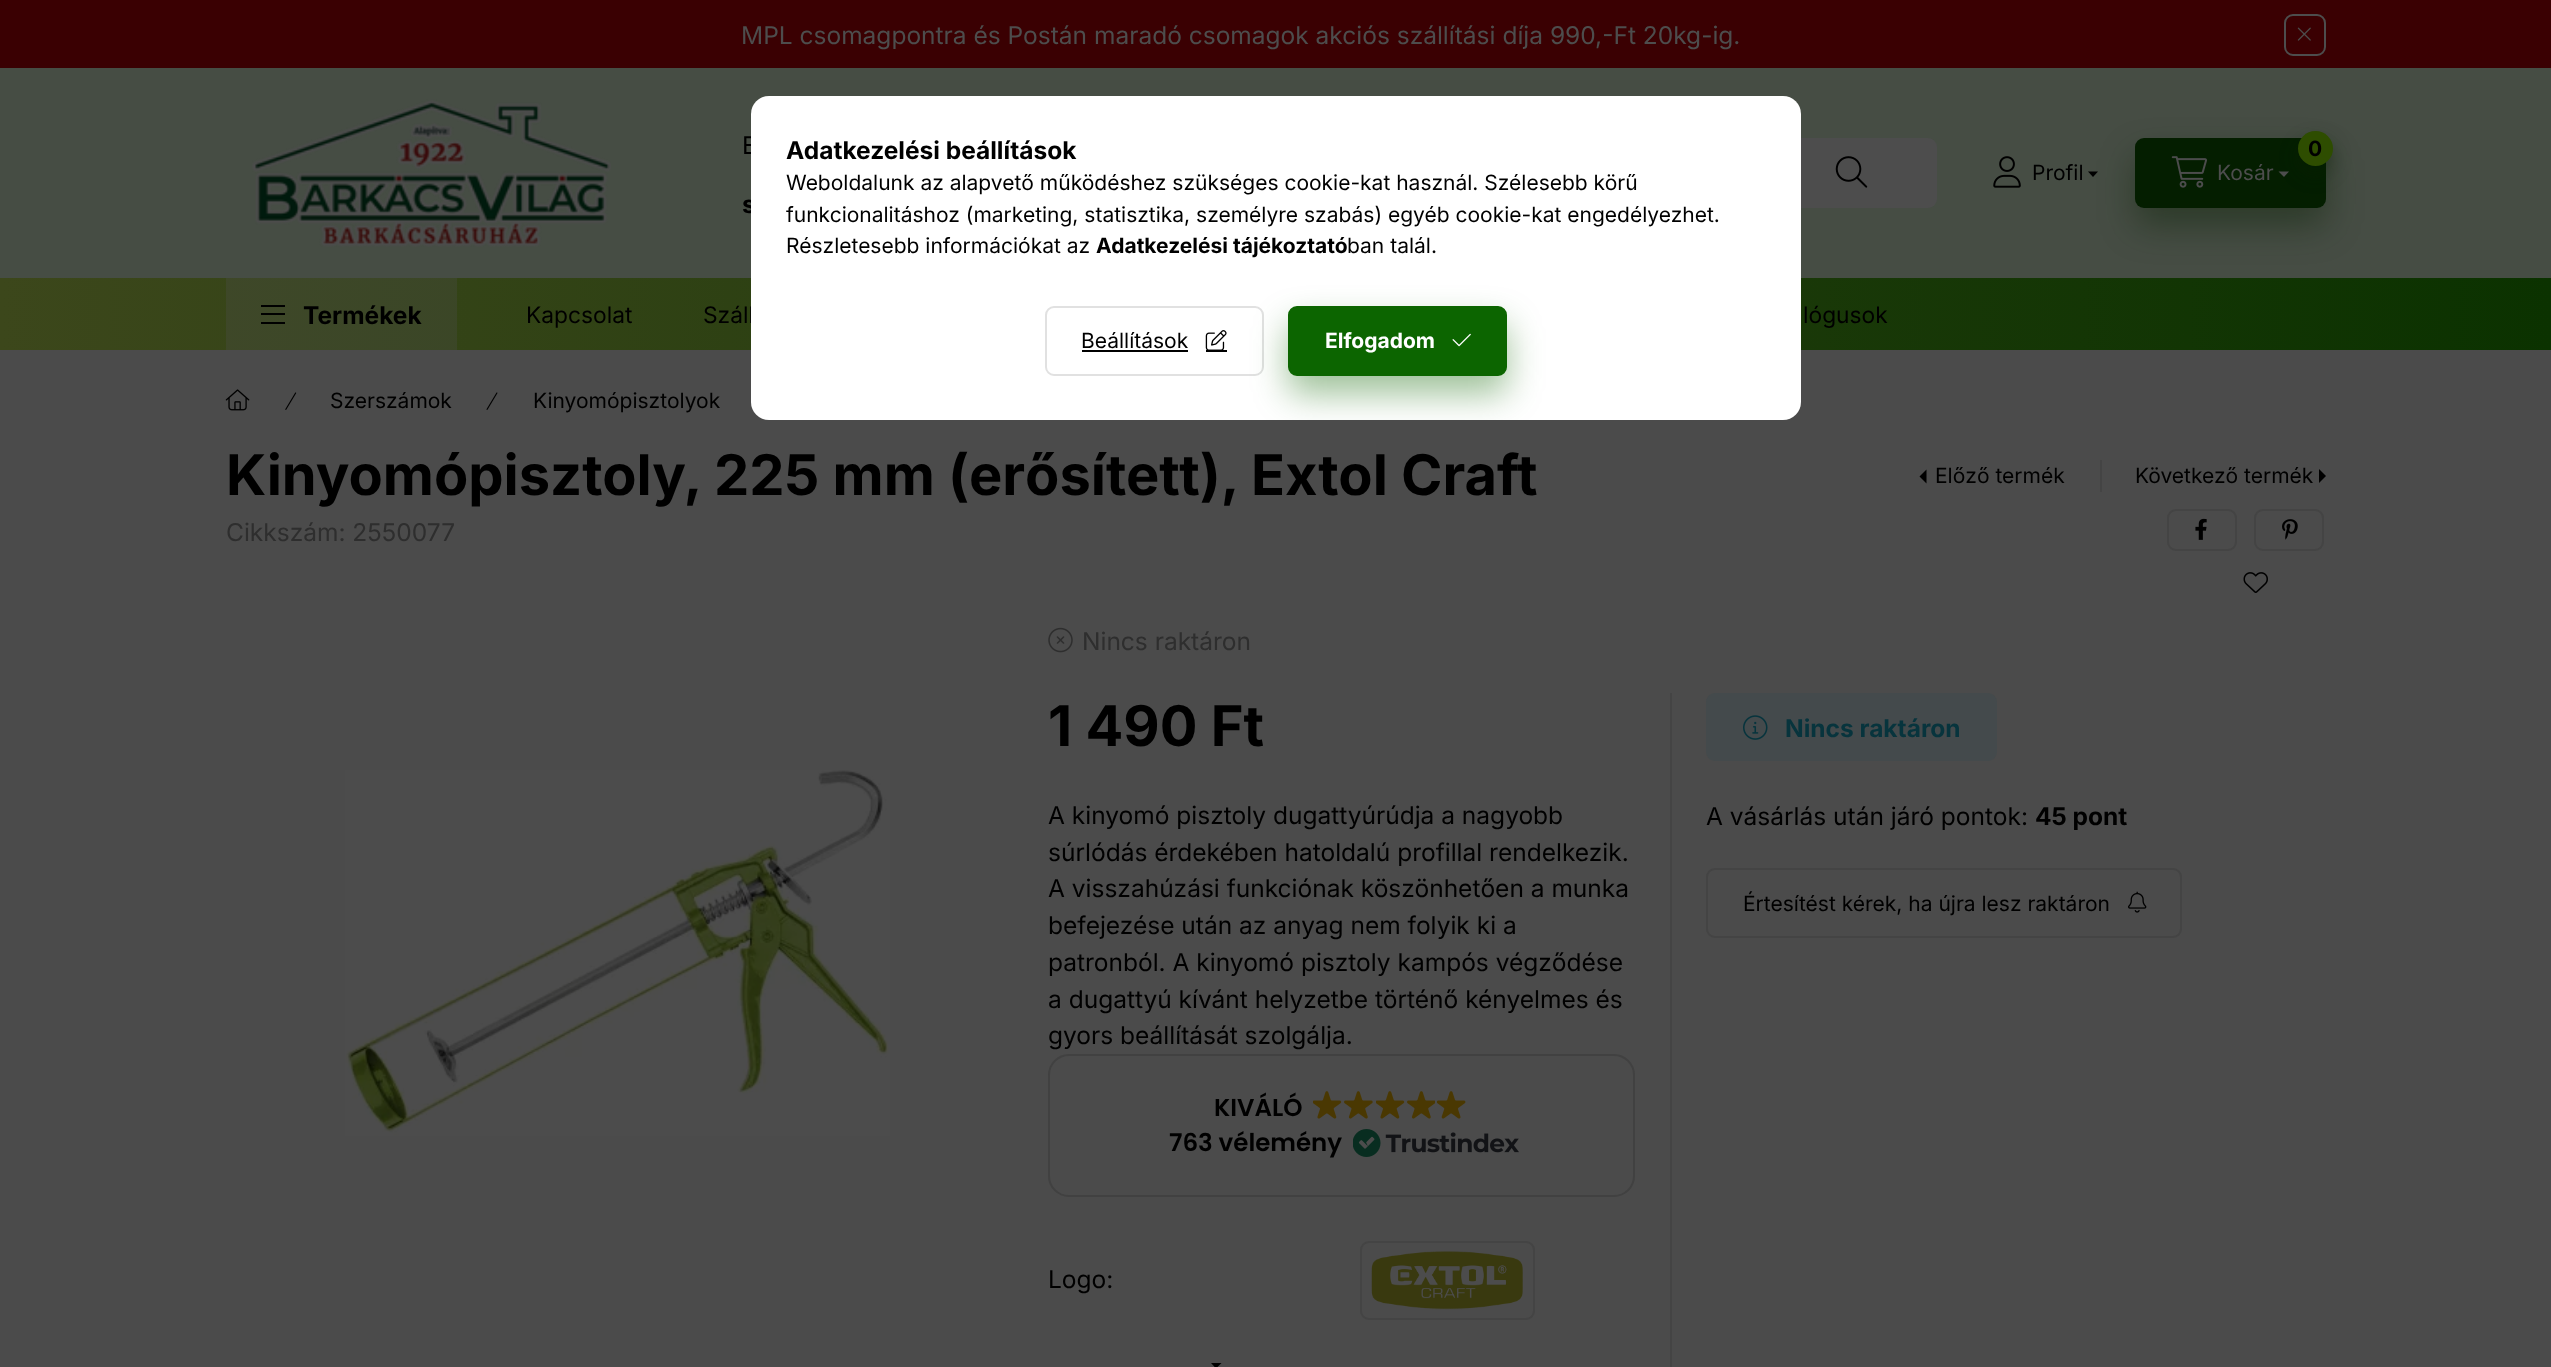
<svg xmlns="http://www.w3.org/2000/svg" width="2551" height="1367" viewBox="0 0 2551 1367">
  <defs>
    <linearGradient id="g1" gradientUnits="userSpaceOnUse" x1="0" y1="684" x2="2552" y2="684"><stop offset="0" stop-color="#3c471b"/><stop offset="1" stop-color="#0b3200"/></linearGradient>
    <linearGradient id="g2" gradientUnits="userSpaceOnUse" x1="0" y1="684" x2="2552" y2="684"><stop offset="0" stop-color="#41492a"/><stop offset="1" stop-color="#1f3a17"/></linearGradient>
    <clipPath id="clip1"><rect x="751" y="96" width="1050" height="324" rx="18"/></clipPath>
  </defs>
  <rect width="100%" height="100%" fill="#4b4b4b"/>
  <path d="M0 0h2551v68H0z" fill="#3a0002"/>
  <rect x="2285" y="15" width="40" height="40" rx="8" fill="none" stroke="#4d4d4d" stroke-width="2"/>
  <image x="2297" y="27" width="14" height="14" href="img/1.png"/>
  <path d="M0 68h2551v210H0z" fill="#464d44"/>
  <image x="252" y="99" width="359" height="148" href="img/2.png"/>
  <rect x="1274" y="138" width="663" height="70" rx="9" fill="#4d4d4d"/>
  <image x="1835" y="156" width="33" height="32" href="img/3.png"/>
  <image x="1993" y="156" width="28" height="32" href="img/4.png"/>
  <path d="M0 278h2551v72H0z" fill="url(#g1)"/>
  <rect x="2135" y="156" width="191" height="70" rx="9" fill="#041e0066" filter="blur(17.5px)"/>
  <path d="M2088 171.5H2098L2093 177Z" fill="#000"/>
  <rect x="2135" y="138" width="191" height="70" rx="9" fill="#041e00"/>
  <rect x="2298" y="140" width="35" height="35" rx="17.5" fill="#041e0066" filter="blur(9px)"/>
  <circle cx="2315.5" cy="148.5" r="17.5" fill="#2e4d00"/>
  <image x="2171" y="156" width="36" height="32" href="img/5.png"/>
  <path d="M2278.5 171.5H2289L2284 177Z" fill="#4d4d4d"/>
  <path d="M226 278h231v72H226z" fill="url(#g2)"/>
  <path d="M261 305h24v2H261z" fill="#000"/>
  <path d="M261 313h24v2H261z" fill="#000"/>
  <path d="M261 322h24v2H261z" fill="#000"/>
  <image x="225" y="389" width="25" height="22" href="img/6.png"/>
  <image x="285" y="392" width="12" height="18" href="img/7.png"/>
  <image x="486" y="392" width="12" height="18" href="img/8.png"/>
  <path d="M1926.5 483.5V469.5L1919.5 476.5Z" fill="#000"/>
  <path d="M2100 460h2v32H2100z" fill="#444"/>
  <path d="M2319 483V469L2326 476Z" fill="#000"/>
  <rect x="2168" y="510" width="68" height="40" rx="8" fill="none" stroke="#444" stroke-width="2"/>
  <image x="2195" y="518" width="12" height="22" href="img/9.png"/>
  <rect x="2255" y="510" width="68" height="40" rx="8" fill="none" stroke="#444" stroke-width="2"/>
  <image x="2282" y="519" width="16" height="21" href="img/10.png"/>
  <image x="2243" y="572" width="25" height="21" href="img/11.png"/>
  <image x="345" y="770" width="545" height="366" href="img/12.png"/>
  <image x="1048" y="627" width="25" height="26" href="img/13.png"/>
  <rect x="1049" y="1055" width="585" height="141" rx="20" fill="none" stroke="#414141" stroke-width="2"/>
  <image x="1313" y="1091" width="29" height="28" href="img/14.png"/>
  <image x="1344" y="1091" width="29" height="28" href="img/15.png"/>
  <image x="1376" y="1091" width="29" height="28" href="img/14.png"/>
  <image x="1407" y="1091" width="28" height="28" href="img/16.png"/>
  <image x="1437" y="1091" width="29" height="28" href="img/17.png"/>
  <image x="1353" y="1129" width="166" height="28" href="img/18.png"/>
  <rect x="1361" y="1242" width="173" height="77" rx="8" fill="none" stroke="#444" stroke-width="2"/>
  <image x="1371" y="1251" width="152" height="59" href="img/19.png"/>
  <path d="M1211 1363H1221.5L1216 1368.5Z" fill="#000"/>
  <path d="M1670 693h2v674H1670z" fill="#444"/>
  <rect x="1706" y="693" width="291" height="68" rx="9" fill="#444a4c"/>
  <image x="1743" y="715" width="25" height="25" href="img/20.png"/>
  <rect x="1707" y="869" width="474" height="68" rx="8" fill="none" stroke="#444" stroke-width="2"/>
  <image x="2128" y="891" width="19" height="22" href="img/21.png"/>
  <text x="741" y="44" font-family="Inter" font-size="24.5" fill="#4d4d4d">MPL csomagpontra és Postán maradó csomagok akciós szállítási díja 990,-Ft 20kg-ig.</text>
  <text x="742" y="154" font-family="Inter" font-size="24.5" fill="#000">E</text>
  <text x="742" y="213" font-family="Inter" font-size="24.5" font-weight="bold" fill="#000">s</text>
  <text x="2032" y="180" font-family="Inter" font-size="21" fill="#000">Profil</text>
  <text x="2308" y="156" font-family="Inter" font-size="21" font-weight="bold" fill="#000">0</text>
  <text x="2217" y="180" font-family="Inter" font-size="21" fill="#4d4d4d">Kosár</text>
  <text x="303" y="324" font-family="Inter" font-size="24.5" font-weight="bold" fill="#000">Termékek</text>
  <g font-family="Inter" font-size="22.75" fill="#000">
    <text x="526" y="323">Kapcsolat</text>
    <text x="703" y="323">Száll</text>
    <text x="1803" y="323">lógusok</text>
  </g>
  <g font-family="Inter" font-size="21" fill="#000">
    <text x="330" y="408">Szerszámok</text>
    <text x="533" y="408">Kinyomópisztolyok</text>
  </g>
  <text x="226" y="495" font-family="Inter" font-size="56" font-weight="bold" fill="#000">Kinyomópisztoly, 225 mm (erősített), Extol Craft</text>
  <g font-family="Inter" font-size="21" fill="#000">
    <text x="1935" y="483">Előző termék</text>
    <text x="2135" y="483">Következő termék</text>
  </g>
  <g font-family="Inter" font-size="24.5" fill="#2e2e2e">
    <text x="226" y="541">Cikkszám: 2550077</text>
    <text x="1082" y="650">Nincs raktáron</text>
  </g>
  <text x="1048" y="746" font-family="Inter" font-size="56" font-weight="bold" fill="#000">1 490 Ft</text>
  <g font-family="Inter" font-size="24.5" fill="#000">
    <text x="1048" y="824">A kinyomó pisztoly dugattyúrúdja a nagyobb</text>
    <text x="1048" y="861">súrlódás érdekében hatoldalú profillal rendelkezik.</text>
    <text x="1048" y="897">A visszahúzási funkciónak köszönhetően a munka</text>
    <text x="1048" y="934">befejezése után az anyag nem folyik ki a</text>
    <text x="1048" y="971">patronból. A kinyomó pisztoly kampós végződése</text>
    <text x="1048" y="1008">a dugattyú kívánt helyzetbe történő kényelmes és</text>
    <text x="1048" y="1044">gyors beállítását szolgálja.</text>
  </g>
  <g font-family="Poppins" font-size="24.5" font-weight="600" fill="#000">
    <text x="1214" y="1116">KIVÁLÓ</text>
    <text x="1169" y="1151">763 vélemény</text>
  </g>
  <text x="1048" y="1288" font-family="Inter" font-size="24.5" fill="#000">Logo:</text>
  <text x="1785" y="737" font-family="Inter" font-size="24.5" font-weight="bold" fill="#07343d">Nincs raktáron</text>
  <text x="1706" y="825" font-family="Inter" font-size="24.5" fill="#000">A vásárlás után járó pontok:</text>
  <text x="2035" y="825" font-family="Inter" font-size="24.5" font-weight="bold" fill="#000">45 pont</text>
  <text x="1743" y="911" font-family="Inter" font-size="21" fill="#000">Értesítést kérek, ha újra lesz raktáron</text>
  <rect x="751" y="96" width="1050" height="324" rx="18" fill="#fff"/>
  <text x="786" y="159" font-family="Inter" font-size="24.5" font-weight="bold" fill="#000">Adatkezelési beállítások</text>
  <g font-family="Inter" font-size="21" fill="#000">
    <text x="786" y="190">Weboldalunk az alapvető működéshez szükséges cookie-kat használ. Szélesebb körű</text>
    <text x="786" y="222">funkcionalitáshoz (marketing, statisztika, személyre szabás) egyéb cookie-kat engedélyezhet.</text>
    <text x="786" y="253">Részletesebb információkat az</text>
  </g>
  <text x="1096" y="253" font-family="Inter" font-size="21" font-weight="bold" fill="#000">Adatkezelési tájékoztató</text>
  <text x="1347" y="253" font-family="Inter" font-size="21" fill="#000">ban talál.</text>
  <rect x="1046" y="307" width="217" height="68" rx="8" fill="none" stroke="#e1e1e1" stroke-width="2"/>
  <text x="1081" y="348" font-family="Inter" font-size="21" fill="#000">Beállítások</text>
  <path d="M1082 350h106v2H1082z" fill="#000"/>
  <image x="1205" y="330" width="22" height="20" href="img/22.png"/>
  <path d="M1206 350h21v2H1206z" fill="#000"/>
  <g clip-path="url(#clip1)">
    <rect x="1288" y="324" width="219" height="70" rx="9" fill="#0c650066" filter="blur(17.5px)"/>
  </g>
  <rect x="1289" y="307" width="217" height="68" rx="8" fill="#0c6500" stroke="#0c6500" stroke-width="2"/>
  <text x="1325" y="348" font-family="Inter" font-size="21" font-weight="bold" fill="#fff">Elfogadom</text>
  <image x="1452" y="333" width="19" height="14" href="img/23.png"/>
</svg>
